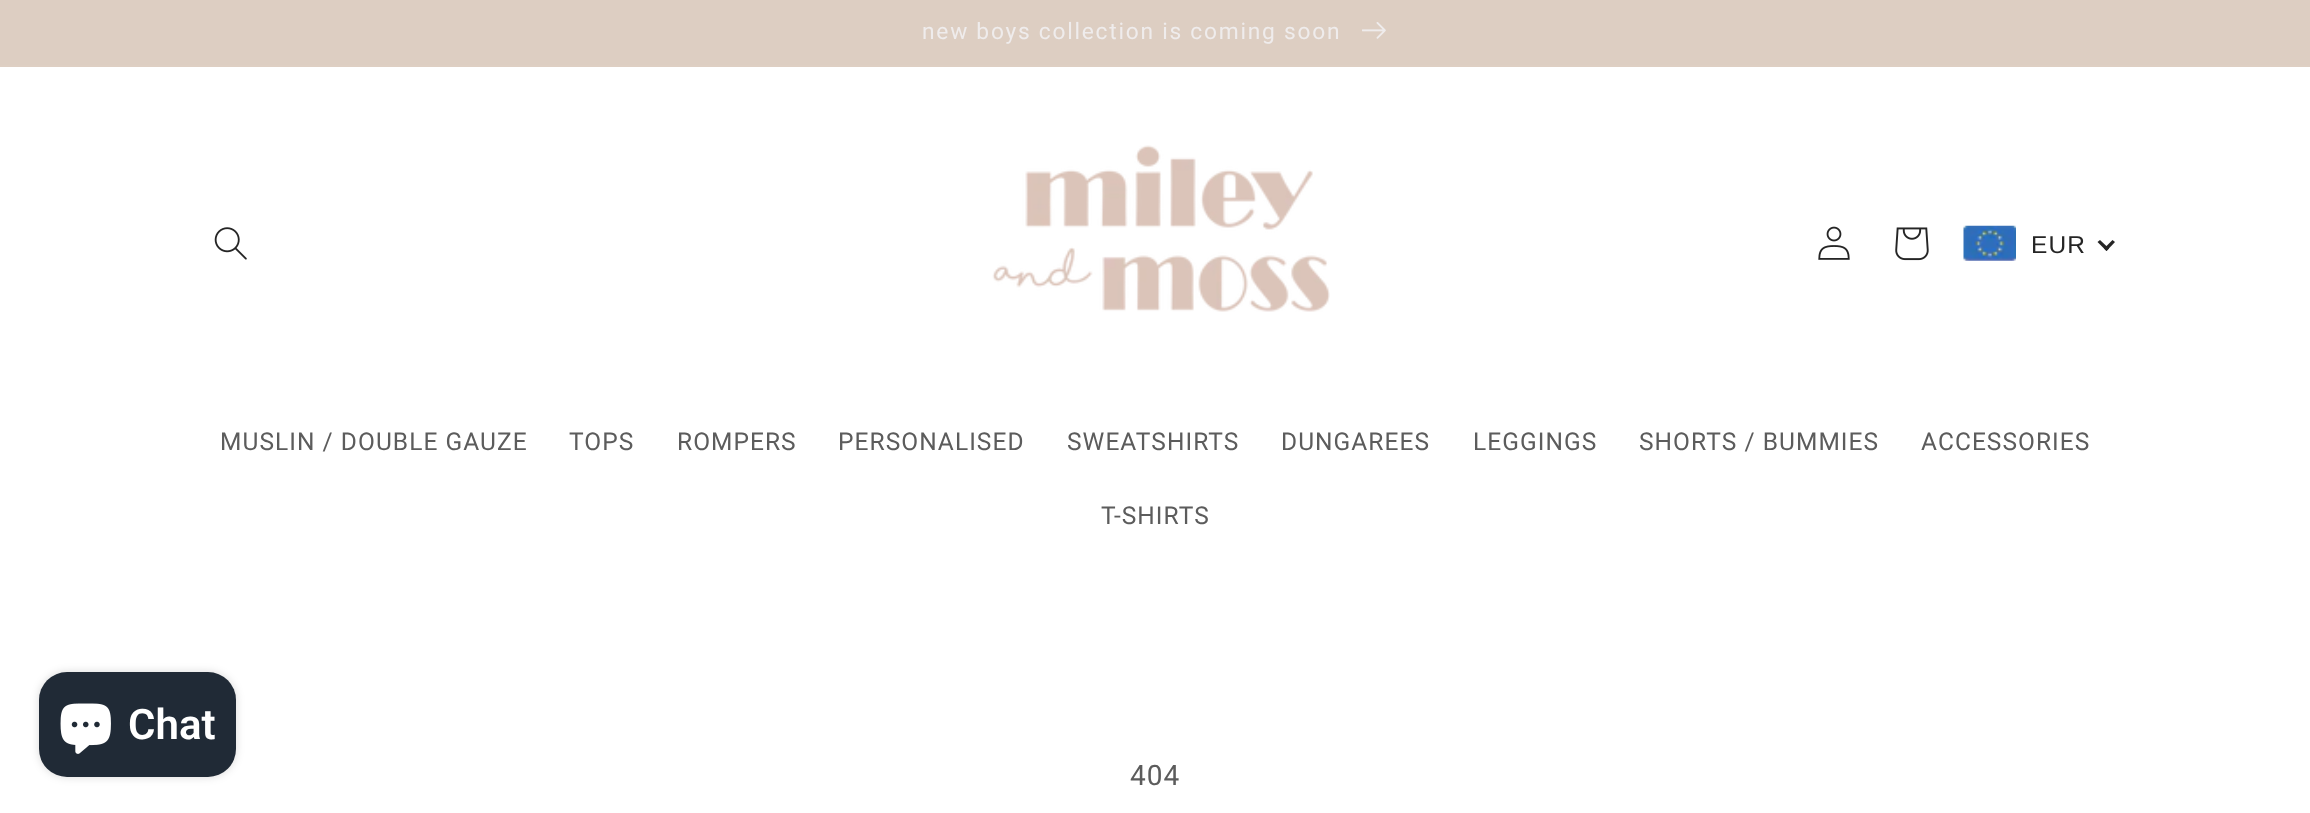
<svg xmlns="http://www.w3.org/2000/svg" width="2310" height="813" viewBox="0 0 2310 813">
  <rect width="100%" height="100%" fill="#fff"/>
  <path d="M0 65h2310v2H0z" fill="#decfc3"/>
  <path d="M0 0h2310v65H0z" fill="#ddcec2"/>
  <image x="1362" y="22" width="24" height="17" href="img/1.png"/>
  <image x="214" y="227" width="33" height="33" href="img/2.png"/>
  <image x="992" y="145" width="338" height="167" href="img/3.png"/>
  <image x="1818" y="226" width="32" height="34" href="img/4.png"/>
  <image x="1895" y="227" width="34" height="34" href="img/5.png"/>
  <image x="1963" y="225" width="53" height="36" href="img/6.png"/>
  <path d="M2112.5 240L2115 242L2106.5 251L2104 248.5Z" fill="#252525"/>
  <path d="M2100 240L2109 248.5L2106.5 251L2097.5 242Z" fill="#252525"/>
  <rect x="39" y="672" width="197" height="105" rx="28" fill="#00000026" filter="blur(4.5px)"/>
  <rect x="39" y="672" width="197" height="105" rx="28" fill="#202a36"/>
  <image x="60" y="703" width="51" height="51" href="img/7.png"/>
  <text x="922" y="39" font-family="Roboto" font-size="22.75" letter-spacing="1.75" fill="#efecec">new boys collection is coming soon</text>
  <text x="2031" y="253" font-family="Liberation Sans" font-size="24.5" letter-spacing="1.05" fill="#252525">EUR</text>
  <g font-family="Roboto" font-size="24.5" letter-spacing="1.05" fill="#5c5c5c">
    <text x="220" y="450">MUSLIN / DOUBLE GAUZE</text>
    <text x="569" y="450">TOPS</text>
    <text x="677" y="450">ROMPERS</text>
    <text x="838" y="450">PERSONALISED</text>
    <text x="1067" y="450">SWEATSHIRTS</text>
    <text x="1281" y="450">DUNGAREES</text>
    <text x="1473" y="450">LEGGINGS</text>
    <text x="1639" y="450">SHORTS / BUMMIES</text>
    <text x="1921" y="450">ACCESSORIES</text>
    <text x="1101" y="524">T-SHIRTS</text>
  </g>
  <text x="128" y="739" font-family="Roboto" font-size="42" font-weight="600" fill="#fff">Chat</text>
  <text x="1130" y="785" font-family="Roboto" font-size="28" letter-spacing="1.05" fill="#5c5c5c">404</text>
</svg>
